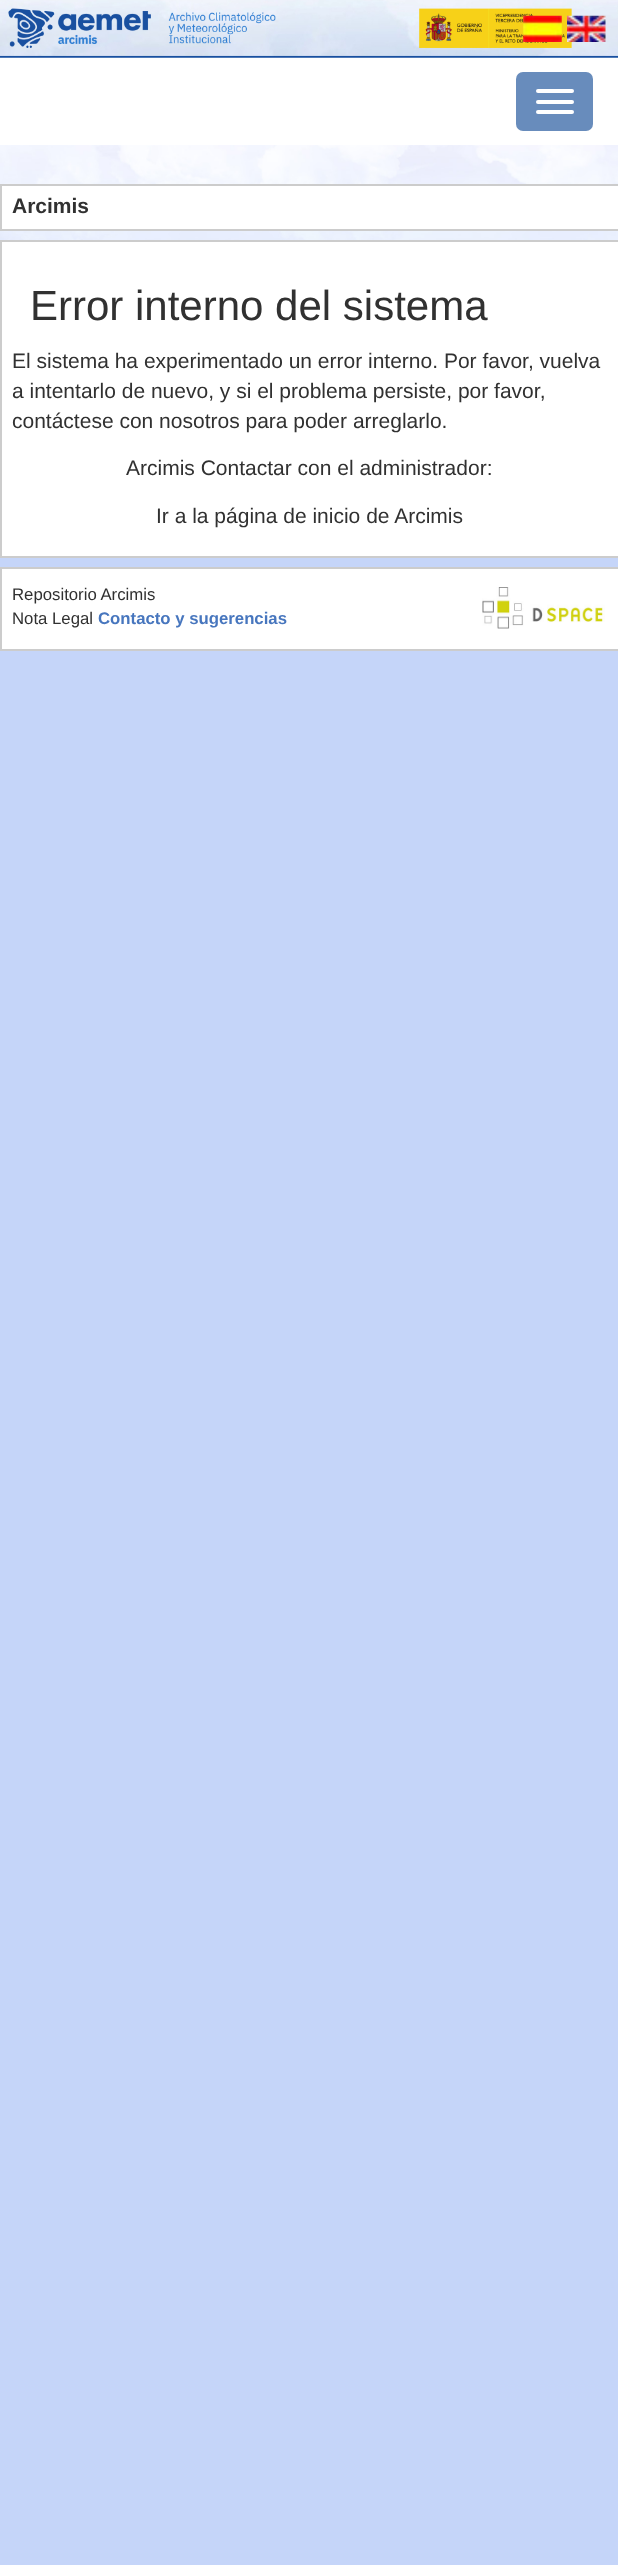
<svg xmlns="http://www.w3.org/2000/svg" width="618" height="2565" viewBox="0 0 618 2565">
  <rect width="100%" height="100%" fill="#c5d5f9"/>
  <image x="0" y="57" width="618" height="183" href="img/1.png"/>
  <image x="0" y="0" width="618" height="58" href="img/2.png"/>
  <image x="523" y="15" width="39" height="27" href="img/3.png"/>
  <image x="567" y="15" width="39" height="27" href="img/4.png"/>
  <path d="M0 58h618v87H0z" fill="#fff"/>
  <rect x="516" y="72" width="77" height="59" rx="7" fill="#688cbc"/>
  <rect x="536" y="89" width="38" height="4" rx="2" fill="#fff"/>
  <rect x="536" y="100" width="38" height="4" rx="2" fill="#fff"/>
  <rect x="536" y="110" width="38" height="4" rx="2" fill="#fff"/>
  <path d="M1 185h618v45H1z" fill="#fff" stroke="#ccc" stroke-width="2"/>
  <path d="M1 241h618v316H1z" fill="#fff" stroke="#ccc" stroke-width="2"/>
  <path d="M1 568h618v82H1z" fill="#fff" stroke="#ccc" stroke-width="2"/>
  <image x="482" y="587" width="123" height="42" href="img/5.png"/>
  <text x="12" y="213" font-family="Liberation Sans" font-size="21" font-weight="bold" fill="#313131">Arcimis</text>
  <text x="30" y="320" font-family="Liberation Sans" font-size="42" fill="#313131">Error interno del sistema</text>
  <g font-family="Liberation Sans" font-size="21" fill="#313131">
    <text x="12" y="368">El sistema ha experimentado un error interno. Por favor, vuelva</text>
    <text x="12" y="398">a intentarlo de nuevo, y si el problema persiste, por favor,</text>
    <text x="12" y="428">contáctese con nosotros para poder arreglarlo.</text>
    <text x="126" y="475">Arcimis Contactar con el administrador:</text>
    <text x="156" y="523">Ir a la página de inicio de Arcimis</text>
  </g>
  <g font-family="Liberation Sans" font-size="16.75" fill="#313131">
    <text x="12" y="600">Repositorio Arcimis</text>
    <text x="12" y="624">Nota Legal</text>
  </g>
  <text x="98" y="624" font-family="Liberation Sans" font-size="16.75" font-weight="bold" fill="#4776be">Contacto y sugerencias</text>
</svg>
